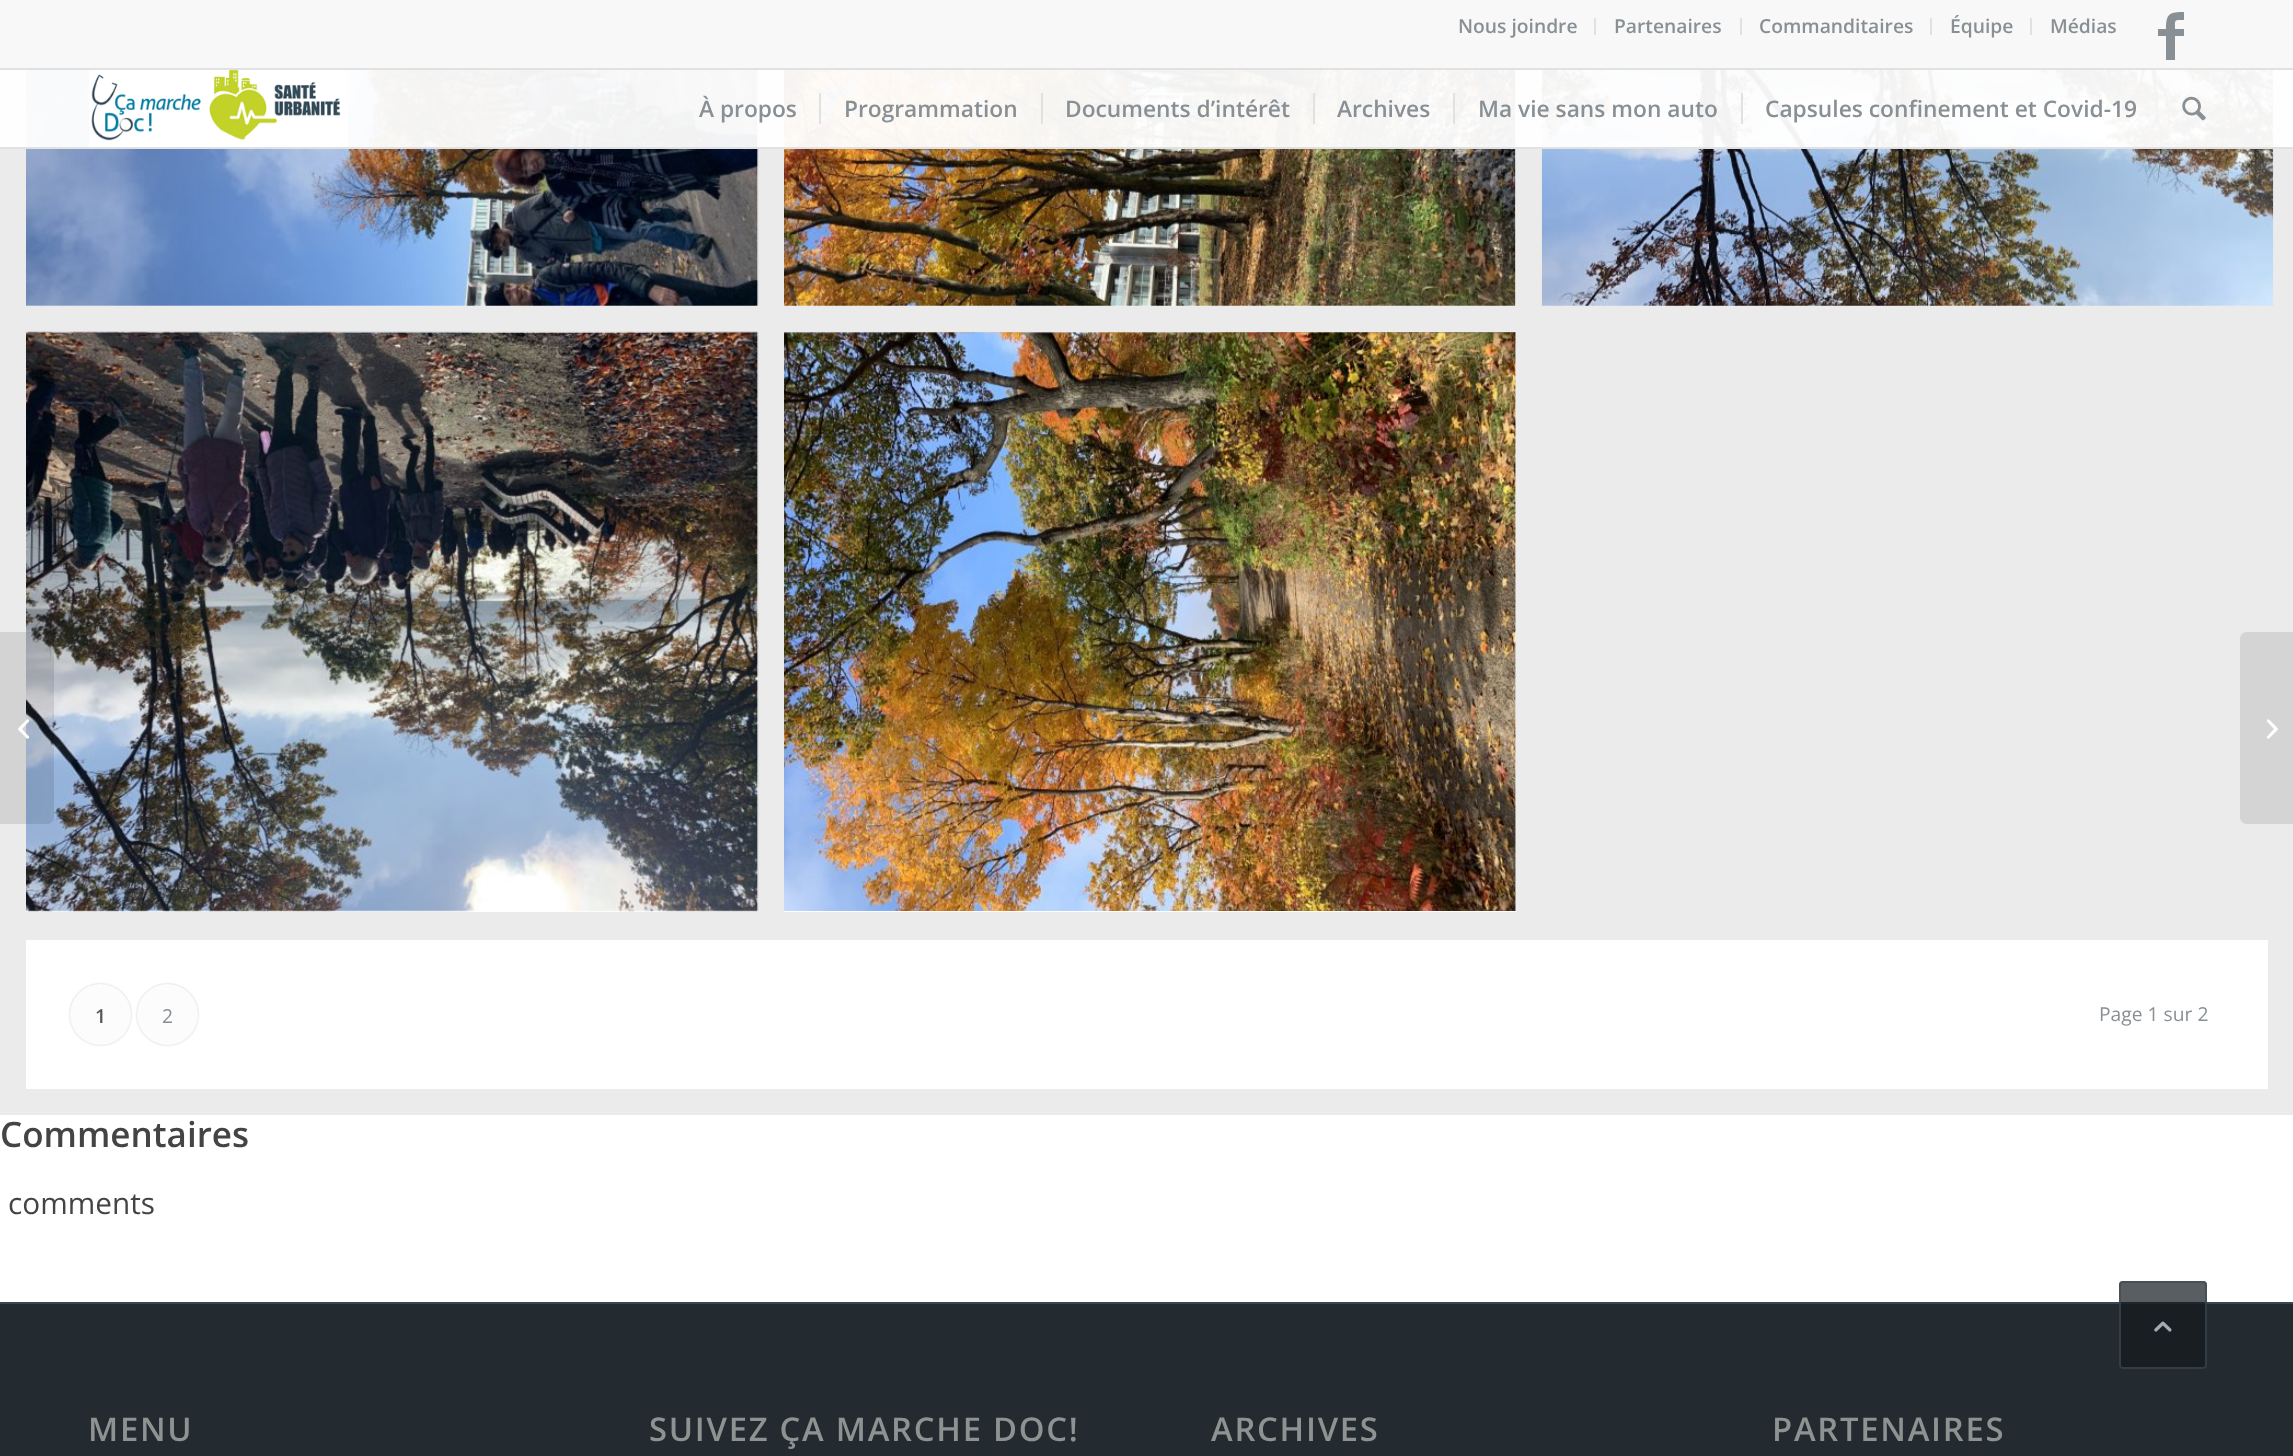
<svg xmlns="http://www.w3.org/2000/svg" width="2293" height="1456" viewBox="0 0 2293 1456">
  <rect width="100%" height="100%" fill="#fff"/>
  <path d="M0 0h2293v68H0z" fill="#f8f8f8"/>
  <path d="M0 68h2293v2H0z" fill="#e1e1e1"/>
  <path d="M1594 18h2v17H1594z" fill="#e1e1e1"/>
  <path d="M1740 18h2v17H1740z" fill="#e1e1e1"/>
  <path d="M1930 18h2v17H1930z" fill="#e1e1e1"/>
  <path d="M2030 18h2v17H2030z" fill="#e1e1e1"/>
  <path d="M2184 20C2174 20 2175 19 2175 29H2184V36H2175V60H2166V36H2158V29H2166C2166 13 2170 12 2184 12Z" fill="#889095"/>
  <path d="M0 70h2293v1045H0z" fill="#ebebeb"/>
  <path d="M26 70h732v236H26z" fill="#fff"/>
  <image x="26" y="70" width="733" height="236" href="img/5.png"/>
  <path d="M784 70h732v236H784z" fill="#fff"/>
  <image x="784" y="70" width="732" height="236" href="img/6.png"/>
  <image x="1541" y="70" width="733" height="236" href="img/7.png"/>
  <path d="M0 70h2293v77H0z" fill="#fffffff2"/>
  <path d="M0 147h2293v2H0z" fill="#e1e1e1"/>
  <image x="89" y="70" width="259" height="77" href="img/1.png"/>
  <path d="M819 93h2v31H819z" fill="#e1e1e1"/>
  <path d="M1041 93h2v31H1041z" fill="#e1e1e1"/>
  <path d="M1313 93h2v31H1313z" fill="#e1e1e1"/>
  <path d="M1453 93h2v31H1453z" fill="#e1e1e1"/>
  <path d="M1741 93h2v31H1741z" fill="#e1e1e1"/>
  <image x="2182" y="96" width="24" height="25" href="img/2.png"/>
  <path d="M26 333h732v579H26z" fill="#fff"/>
  <image x="26" y="331" width="733" height="581" href="img/8.png"/>
  <path d="M0 632H47C51 632 54 635 54 639V817C54 821 51 824 47 824H0Z" fill="#0000001a"/>
  <image x="18" y="719" width="12" height="20" href="img/3.png"/>
  <path d="M2247 632H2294V824H2247C2243 824 2240 821 2240 817V639C2240 635 2243 632 2247 632Z" fill="#d4d4d4"/>
  <image x="2266" y="719" width="12" height="20" href="img/4.png"/>
  <path d="M784 333h732v579H784z" fill="#fff"/>
  <image x="784" y="332" width="732" height="579" href="img/9.png"/>
  <path d="M26 940h2242v149H26z" fill="#fff"/>
  <rect x="70" y="984" width="61" height="61" rx="30.5" fill="#00000033" filter="blur(1px)"/>
  <circle cx="100.5" cy="1014.5" r="30.5" fill="#fcfcfc"/>
  <rect x="137" y="984" width="61" height="61" rx="30.5" fill="#00000033" filter="blur(1px)"/>
  <circle cx="167.5" cy="1014.5" r="30.5" fill="#fcfcfc"/>
  <path d="M0 1304h2293v152H0z" fill="#232b30"/>
  <path d="M0 1302h2293v2H0z" fill="#384852"/>
  <rect x="2119" y="1281" width="88" height="88" rx="4" fill="#161a1cb3"/>
  <rect x="2120" y="1282" width="86" height="86" rx="3" fill="none" stroke="#3e4a52b3" stroke-width="2"/>
  <image x="2154" y="1321" width="18" height="11" href="img/10.png"/>
  <g font-family="Open Sans" font-size="19.25" font-weight="600" fill="#889095">
    <text x="1458" y="33">Nous joindre</text>
    <text x="1614" y="33">Partenaires</text>
    <text x="1759" y="33">Commanditaires</text>
    <text x="1950" y="33">Équipe</text>
    <text x="2050" y="33">Médias</text>
  </g>
  <g font-family="Open Sans" font-size="22.75" font-weight="600" fill="#889095">
    <text x="699" y="117">À propos</text>
    <text x="844" y="117">Programmation</text>
    <text x="1065" y="117">Documents d’intérêt</text>
    <text x="1337" y="117">Archives</text>
    <text x="1478" y="117">Ma vie sans mon auto</text>
    <text x="1765" y="117">Capsules confinement et Covid-19</text>
  </g>
  <text x="95" y="1023" font-family="Open Sans" font-size="19.25" font-weight="600" fill="#575656">1</text>
  <g font-family="Open Sans" font-size="19.25" fill="#889095">
    <text x="162" y="1023">2</text>
    <text x="2099" y="1021">Page 1 sur 2</text>
  </g>
  <text x="0" y="1147" font-family="Open Sans" font-size="35" font-weight="600" fill="#444">Commentaires</text>
  <text x="8" y="1214" font-family="Open Sans" font-size="29.75" fill="#444">comments</text>
  <g font-family="Open Sans" font-size="32.75" font-weight="600" letter-spacing="1.75" fill="#8e9392">
    <text x="88" y="1441">MENU</text>
    <text x="649" y="1441">SUIVEZ ÇA MARCHE DOC!</text>
    <text x="1211" y="1441">ARCHIVES</text>
    <text x="1772" y="1441">PARTENAIRES</text>
  </g>
</svg>
